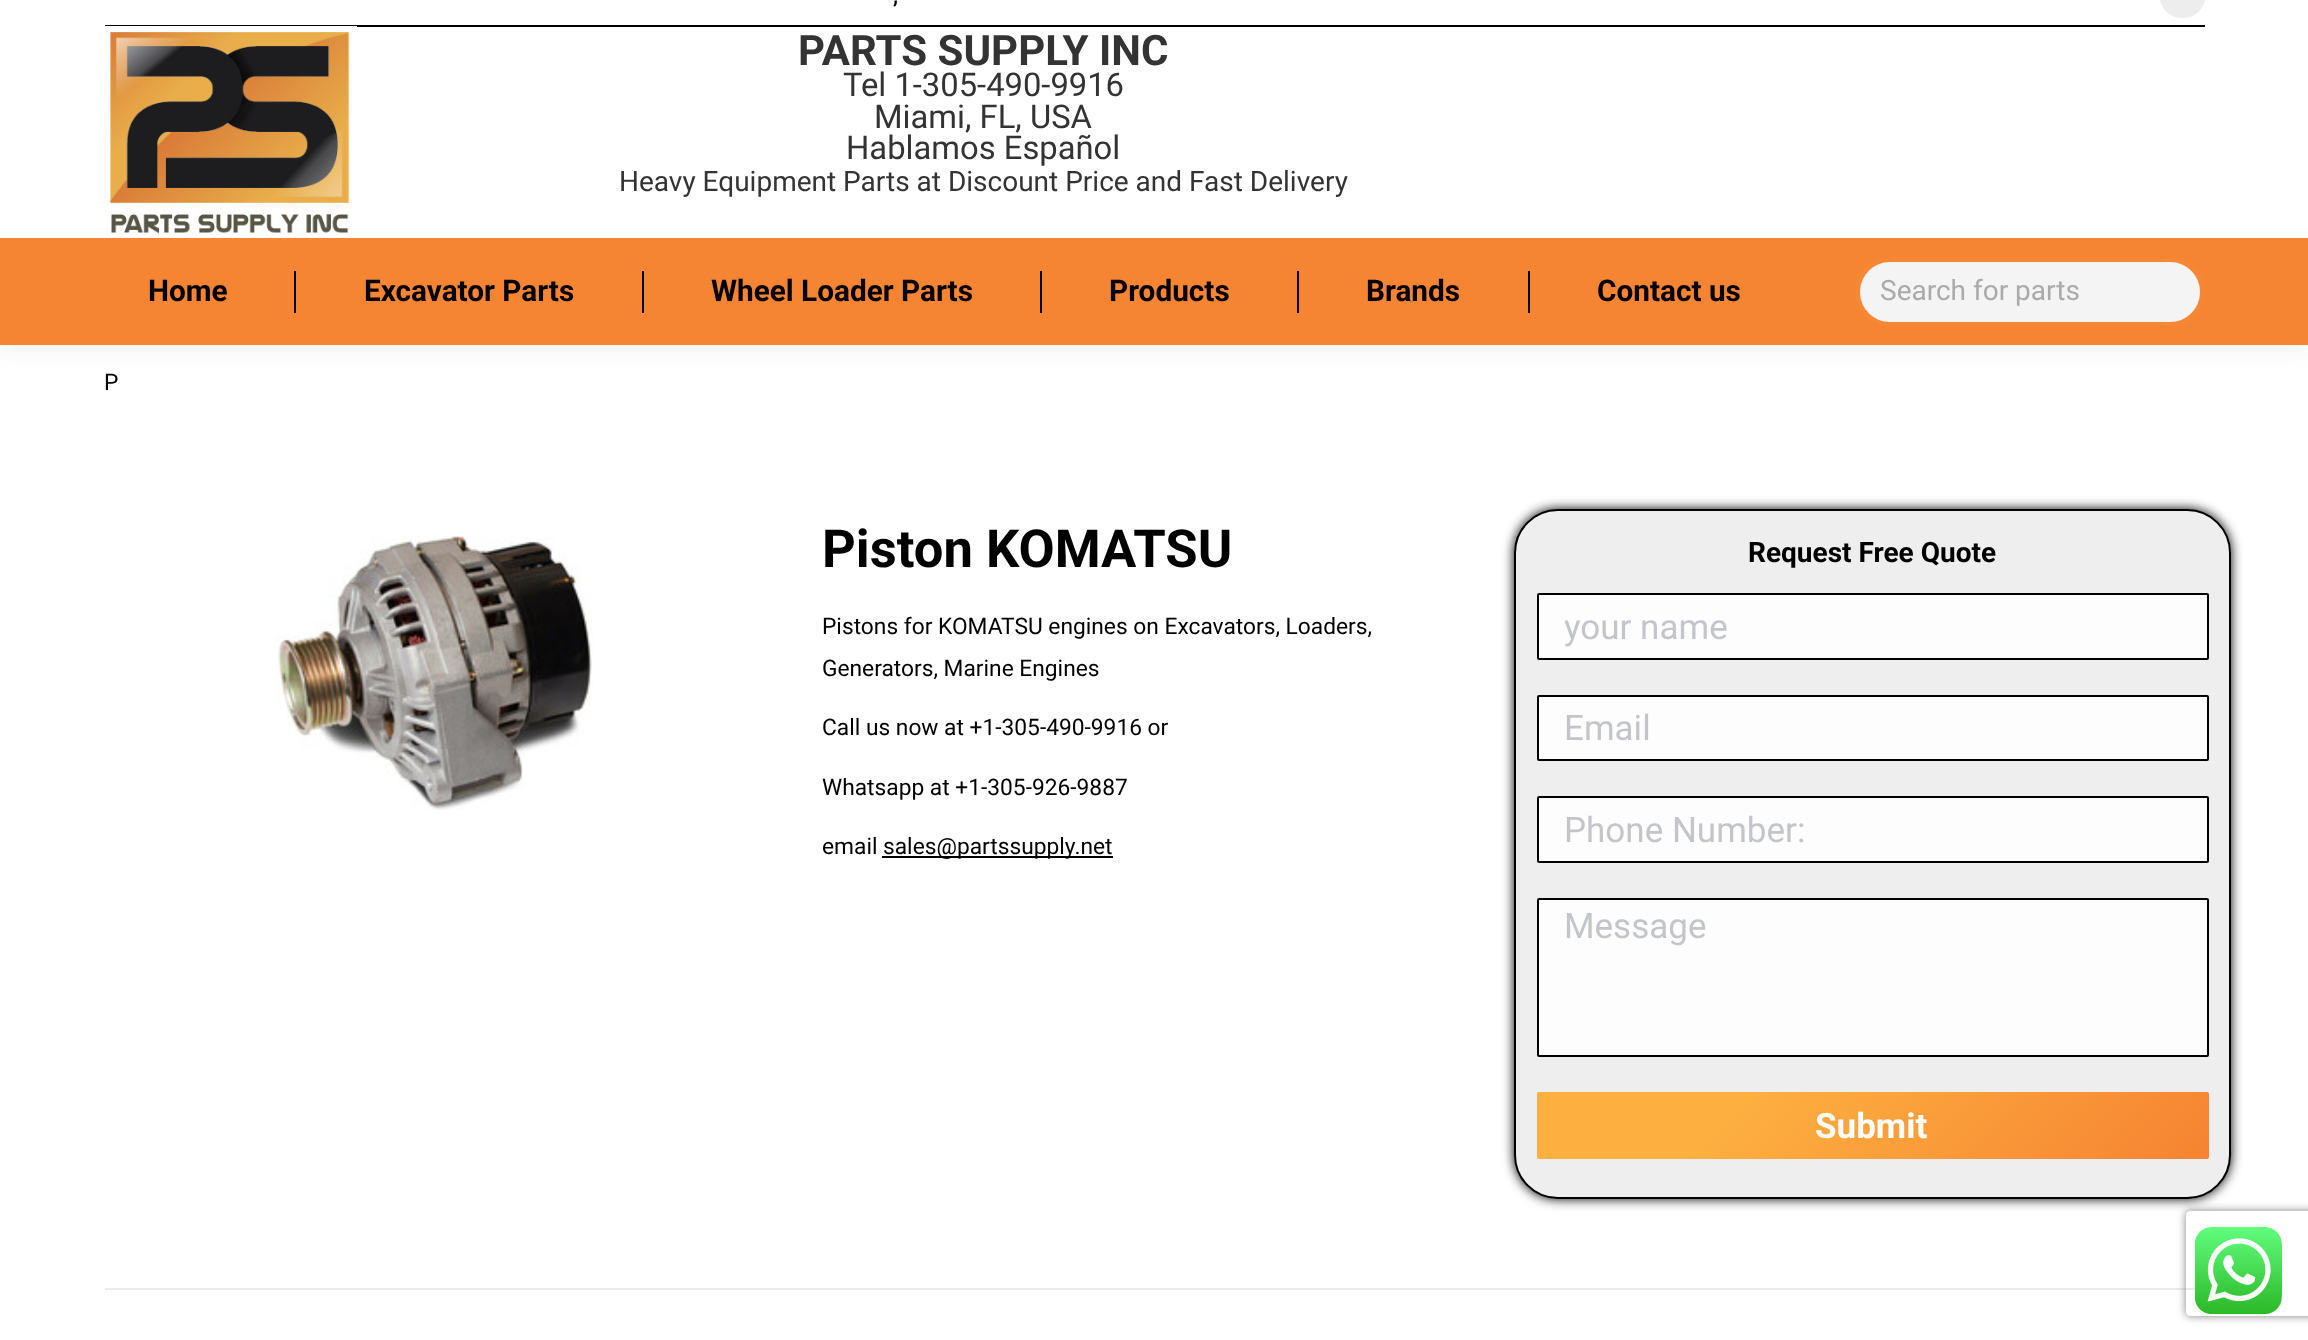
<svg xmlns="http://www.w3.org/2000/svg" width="2308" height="1340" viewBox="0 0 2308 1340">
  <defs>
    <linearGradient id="g1" gradientUnits="userSpaceOnUse" x1="1688" y1="941" x2="2057" y2="1310"><stop offset="0.3" stop-color="#fdaf40"/><stop offset="1" stop-color="#f68332"/></linearGradient>
    <clipPath id="clip1"><path d="M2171 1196H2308V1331H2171ZM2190 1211H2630C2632 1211 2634 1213 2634 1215V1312C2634 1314 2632 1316 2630 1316H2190C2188 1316 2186 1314 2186 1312V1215C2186 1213 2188 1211 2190 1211Z" clip-rule="evenodd"/></clipPath>
    <clipPath id="clip2"><path d="M1565 606h616v42H1565z"/></clipPath>
  </defs>
  <rect width="100%" height="100%" fill="#fff"/>
  <path d="M-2 -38h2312v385H-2z" fill="#00000012" filter="blur(13px)"/>
  <path d="M0 0h2308v238H0z" fill="#fff"/>
  <rect x="2160" y="-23" width="45" height="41" rx="22.5" fill="#ededee"/>
  <path d="M105 25h2100v2H105z" fill="#000"/>
  <image x="105" y="26" width="252" height="210" href="img/1.png"/>
  <path d="M0 238h2308v107H0z" fill="#f68533"/>
  <path d="M294 271h2v42H294z" fill="#000"/>
  <path d="M642 271h2v42H642z" fill="#000"/>
  <path d="M1040 271h2v42H1040z" fill="#000"/>
  <path d="M1297 271h2v42H1297z" fill="#000"/>
  <path d="M1528 271h2v42H1528z" fill="#000"/>
  <rect x="1857.5" y="259.5" width="345" height="65" rx="32.5" fill="#f4f4f4" stroke="#f68734" stroke-width="5"/>
  <image x="275" y="536" width="318" height="274" href="img/2.png"/>
  <path d="M882 856h231v2H882z" fill="#000"/>
  <rect x="1514" y="509" width="717" height="690" rx="44" fill="#000" filter="blur(6px)"/>
  <rect x="1515" y="510" width="715" height="688" rx="43" fill="#eee" stroke="#000" stroke-width="2"/>
  <rect x="1538" y="594" width="670" height="65" rx="1" fill="#fdfdfd" stroke="#000" stroke-width="2"/>
  <rect x="1538" y="696" width="670" height="64" rx="1" fill="#fdfdfd" stroke="#000" stroke-width="2"/>
  <rect x="1538" y="797" width="670" height="65" rx="1" fill="#fdfdfd" stroke="#000" stroke-width="2"/>
  <rect x="1538" y="899" width="670" height="157" rx="1" fill="#fdfdfd" stroke="#000" stroke-width="2"/>
  <rect x="1537" y="1092" width="672" height="67" rx="2" fill="url(#g1)"/>
  <path d="M105 1288h2090v2H105z" fill="#ebebeb"/>
  <g clip-path="url(#clip1)">
    <rect x="2186" y="1211" width="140" height="105" rx="4" fill="#808080" filter="blur(4.5px)"/>
  </g>
  <image x="2195" y="1227" width="87" height="87" href="img/3.png"/>
  <text x="893" y="3" font-family="Roboto" font-size="22.75" font-weight="500" fill="#000">,</text>
  <text x="798" y="65" font-family="Roboto" font-size="42" font-weight="bold" fill="#333">PARTS SUPPLY INC</text>
  <g font-family="Roboto" font-size="32.75" fill="#333">
    <text x="843" y="96">Tel 1-305-490-9916</text>
    <text x="874" y="128">Miami, FL, USA</text>
    <text x="846" y="159">Hablamos Español</text>
  </g>
  <text x="619" y="191" font-family="Roboto" font-size="28" fill="#333">Heavy Equipment Parts at Discount Price and Fast Delivery</text>
  <g font-family="Roboto" font-size="29.75" font-weight="bold" fill="#000">
    <text x="148" y="301">Home</text>
    <text x="364" y="301">Excavator Parts</text>
    <text x="711" y="301">Wheel Loader Parts</text>
    <text x="1109" y="301">Products</text>
    <text x="1366" y="301">Brands</text>
    <text x="1597" y="301">Contact us</text>
  </g>
  <text x="1880" y="300" font-family="Roboto" font-size="28" fill="#aaa">Search for parts</text>
  <text x="104" y="390" font-family="Roboto" font-size="22.75" fill="#000">P</text>
  <text x="822" y="567" font-family="Roboto" font-size="52.5" font-weight="bold" fill="#000">Piston KOMATSU</text>
  <g font-family="Roboto" font-size="22.75" fill="#000">
    <text x="822" y="634">Pistons for KOMATSU engines on Excavators, Loaders,</text>
    <text x="822" y="676">Generators, Marine Engines</text>
    <text x="822" y="735">Call us now at +1-305-490-9916 or</text>
    <text x="822" y="795">Whatsapp at +1-305-926-9887</text>
    <text x="822" y="854">email</text>
    <text x="883" y="854">sales@partssupply.net</text>
  </g>
  <text x="1748" y="562" font-family="Roboto" font-size="28" font-weight="bold" fill="#000">Request Free Quote</text>
  <g clip-path="url(#clip2)">
    <text x="1564" y="639" font-family="Roboto" font-size="35" fill="#c4c5c9">your name</text>
  </g>
  <g font-family="Roboto" font-size="35" fill="#c4c5c9">
    <text x="1564" y="740">Email</text>
    <text x="1564" y="842">Phone Number:</text>
    <text x="1564" y="938">Message</text>
  </g>
  <text x="1815" y="1138" font-family="Roboto" font-size="35" font-weight="bold" fill="#fff">Submit</text>
</svg>
